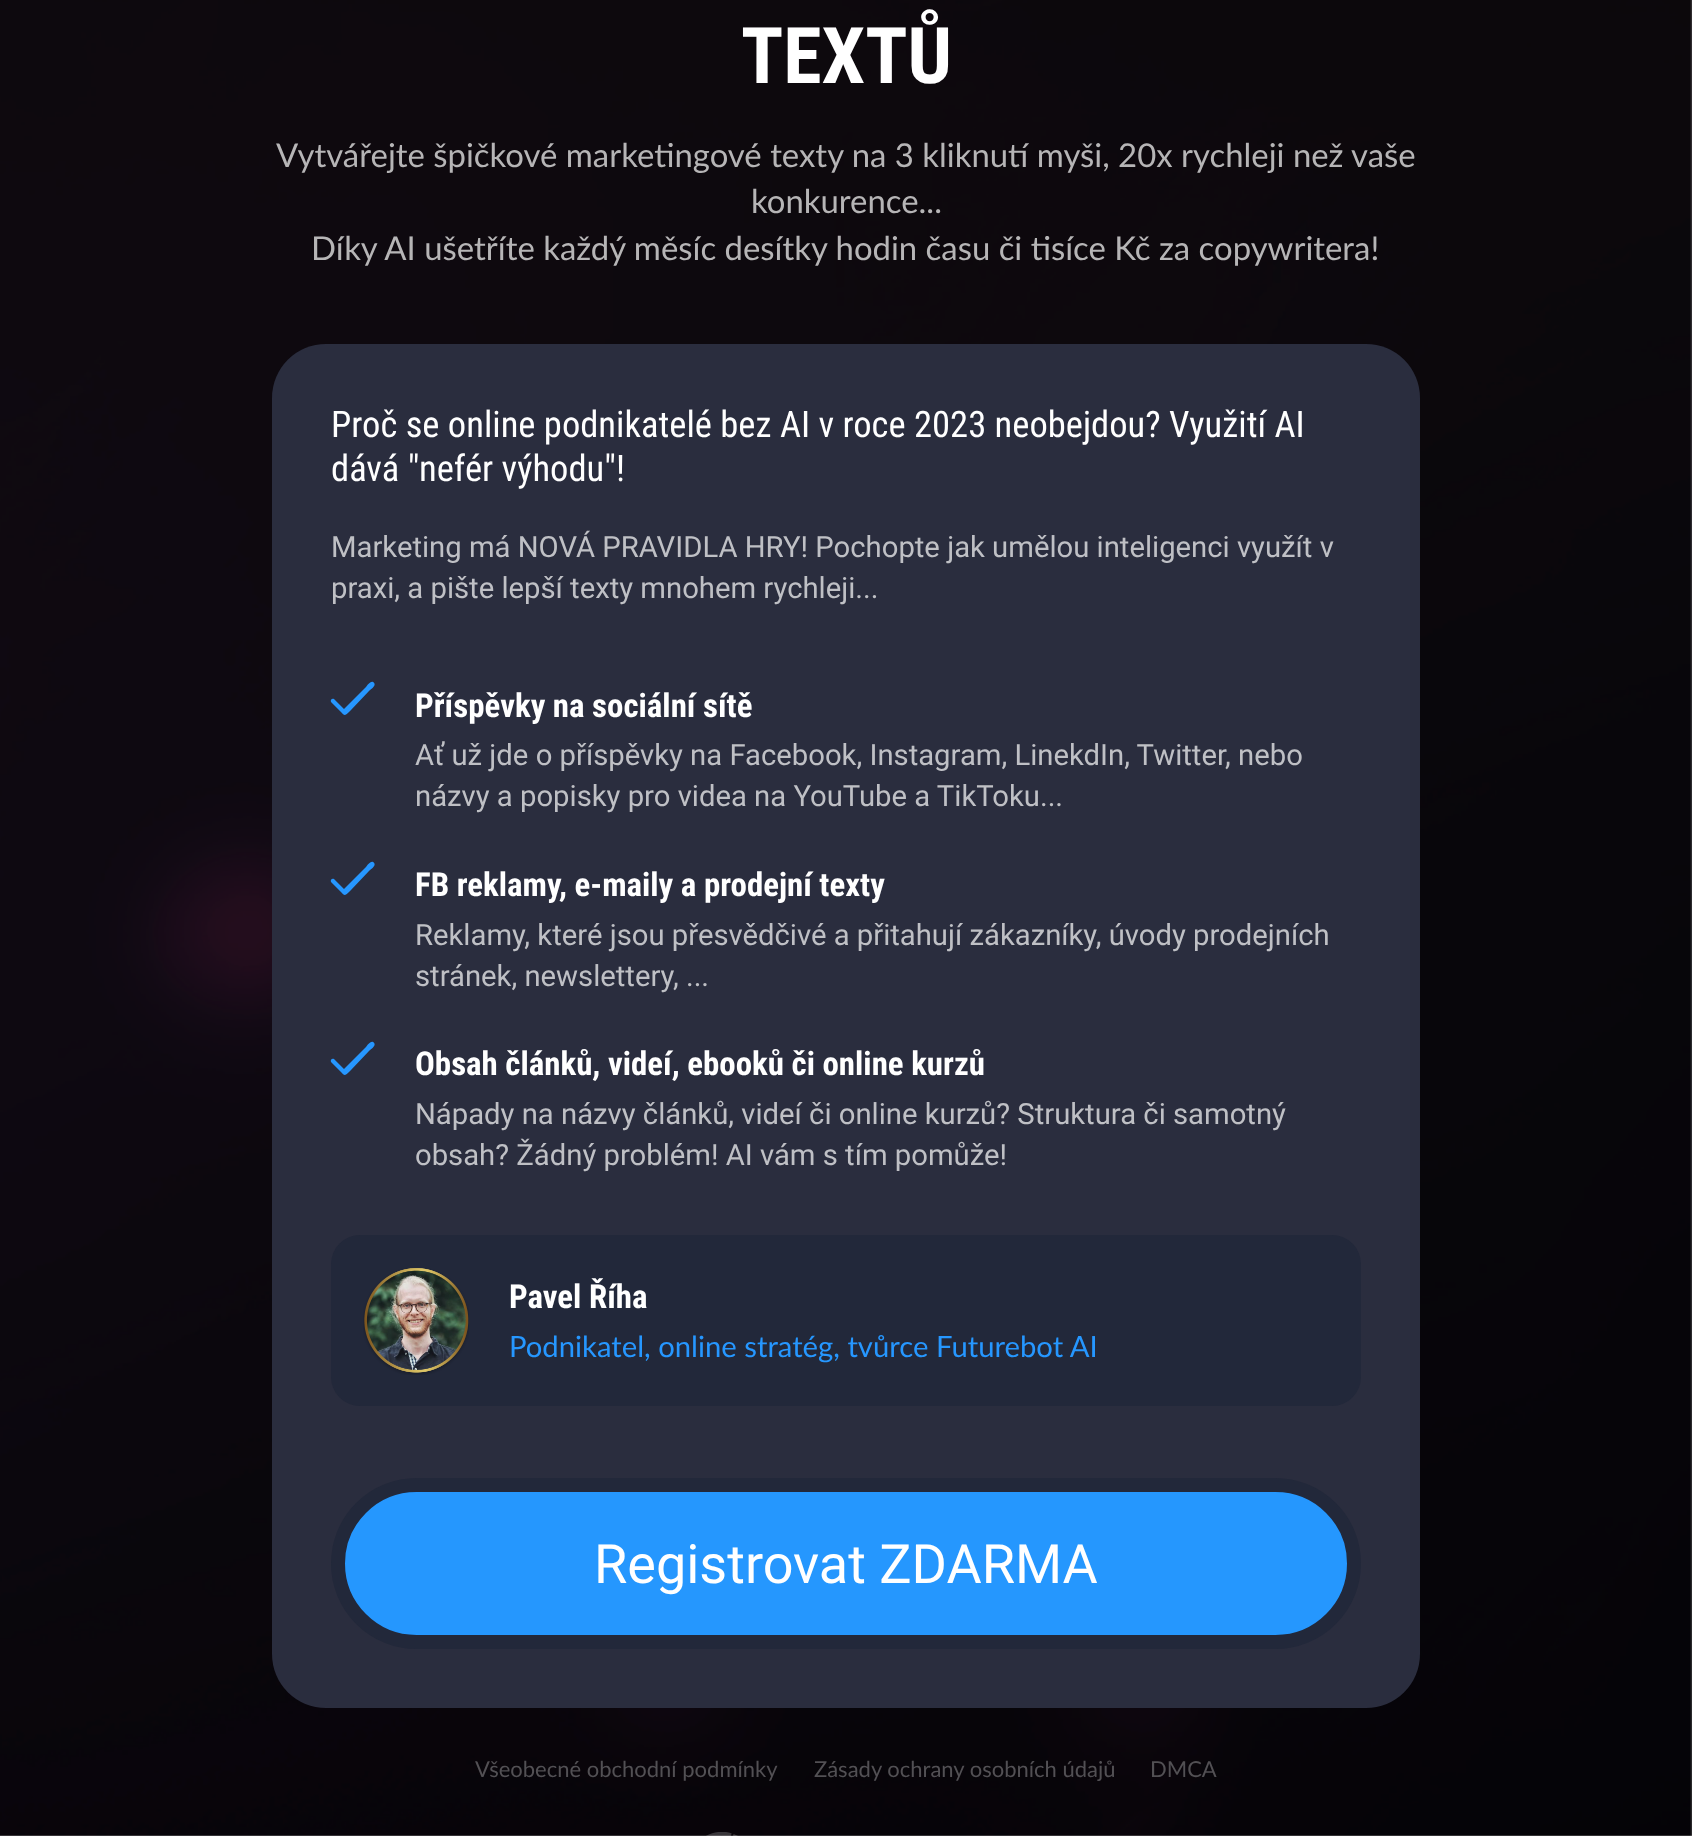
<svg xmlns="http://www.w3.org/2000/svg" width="1692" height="1836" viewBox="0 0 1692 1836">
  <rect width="100%" height="100%" fill="#fff"/>
  <image x="0" y="0" width="1692" height="1836" href="img/1.png"/>
  <rect x="272" y="344" width="1148" height="1364" rx="54" fill="#2a2d3e"/>
  <path d="M344 709L334 699C332 698 330 700 331 702L341 712C345 717 346 715 351 710L369 691C370 690 378 685 373 682C370 681 367 686 366 687Z" fill="#2697ff"/>
  <path d="M344 889L334 879C332 878 330 880 331 882L341 892C345 897 346 895 351 890L369 871C370 870 378 865 373 862C370 861 367 866 366 867Z" fill="#2697ff"/>
  <path d="M344 1069L334 1059C332 1058 330 1060 331 1062L341 1072C345 1077 346 1075 351 1070L369 1051C370 1050 378 1045 373 1042C370 1041 367 1046 366 1047Z" fill="#2697ff"/>
  <rect x="331" y="1235" width="1030" height="171" rx="29" fill="#22283a"/>
  <image x="363" y="1268" width="106" height="107" href="img/2.png"/>
  <rect x="338" y="1485" width="1016" height="157" rx="78.5" fill="#2597fe" stroke="#22283a" stroke-width="14"/>
  <image x="706" y="1832" width="32" height="4" href="img/3.png"/>
  <text x="741" y="83" font-family="Roboto Condensed" font-size="78" font-weight="bold" fill="#fff">TEXTŮ</text>
  <g font-family="Lato" font-size="32.9" fill="#b6b5b6">
    <text x="276" y="167">Vytvářejte špičkové marketingové texty na 3 kliknutí myši, 20x rychleji než vaše</text>
    <text x="751" y="213">konkurence...</text>
    <text x="311" y="260">Díky AI ušetříte každý měsíc desítky hodin času či tisíce Kč za copywritera!</text>
  </g>
  <g font-family="Roboto Condensed" font-size="36.55" fill="#fff">
    <text x="331" y="437">Proč se online podnikatelé bez AI v roce 2023 neobejdou? Využití AI</text>
    <text x="331" y="481">dává "nefér výhodu"!</text>
  </g>
  <g font-family="Roboto" font-size="29.25" fill="#bfc0c5">
    <text x="331" y="557">Marketing má NOVÁ PRAVIDLA HRY! Pochopte jak umělou inteligenci využít v</text>
    <text x="331" y="598">praxi, a pište lepší texty mnohem rychleji...</text>
  </g>
  <text x="415" y="717" font-family="Roboto Condensed" font-size="32.9" font-weight="bold" fill="#fff">Příspěvky na sociální sítě</text>
  <g font-family="Roboto" font-size="29.25" fill="#bfc0c5">
    <text x="415" y="765">Ať už jde o příspěvky na Facebook, Instagram, LinekdIn, Twitter, nebo</text>
    <text x="415" y="806">názvy a popisky pro videa na YouTube a TikToku...</text>
  </g>
  <text x="415" y="896" font-family="Roboto Condensed" font-size="32.9" font-weight="bold" fill="#fff">FB reklamy, e-maily a prodejní texty</text>
  <g font-family="Roboto" font-size="29.25" fill="#bfc0c5">
    <text x="415" y="945">Reklamy, které jsou přesvědčivé a přitahují zákazníky, úvody prodejních</text>
    <text x="415" y="986">stránek, newslettery, ...</text>
  </g>
  <text x="415" y="1075" font-family="Roboto Condensed" font-size="32.9" font-weight="bold" fill="#fff">Obsah článků, videí, ebooků či online kurzů</text>
  <g font-family="Roboto" font-size="29.25" fill="#bfc0c5">
    <text x="415" y="1124">Nápady na názvy článků, videí či online kurzů? Struktura či samotný</text>
    <text x="415" y="1165">obsah? Žádný problém! AI vám s tím pomůže!</text>
  </g>
  <text x="509" y="1308" font-family="Roboto Condensed" font-size="32.9" font-weight="bold" fill="#fff">Pavel Říha</text>
  <text x="509" y="1357" font-family="Lato" font-size="29.25" fill="#2697ff">Podnikatel, online stratég, tvůrce Futurebot AI</text>
  <text x="594" y="1583" font-family="Roboto" font-size="54" fill="#fff">Registrovat ZDARMA</text>
  <g font-family="Lato" font-size="22" fill="#525054">
    <text x="475" y="1777">Všeobecné obchodní podmínky</text>
    <text x="814" y="1777">Zásady ochrany osobních údajů</text>
    <text x="1150" y="1777">DMCA</text>
  </g>
</svg>
